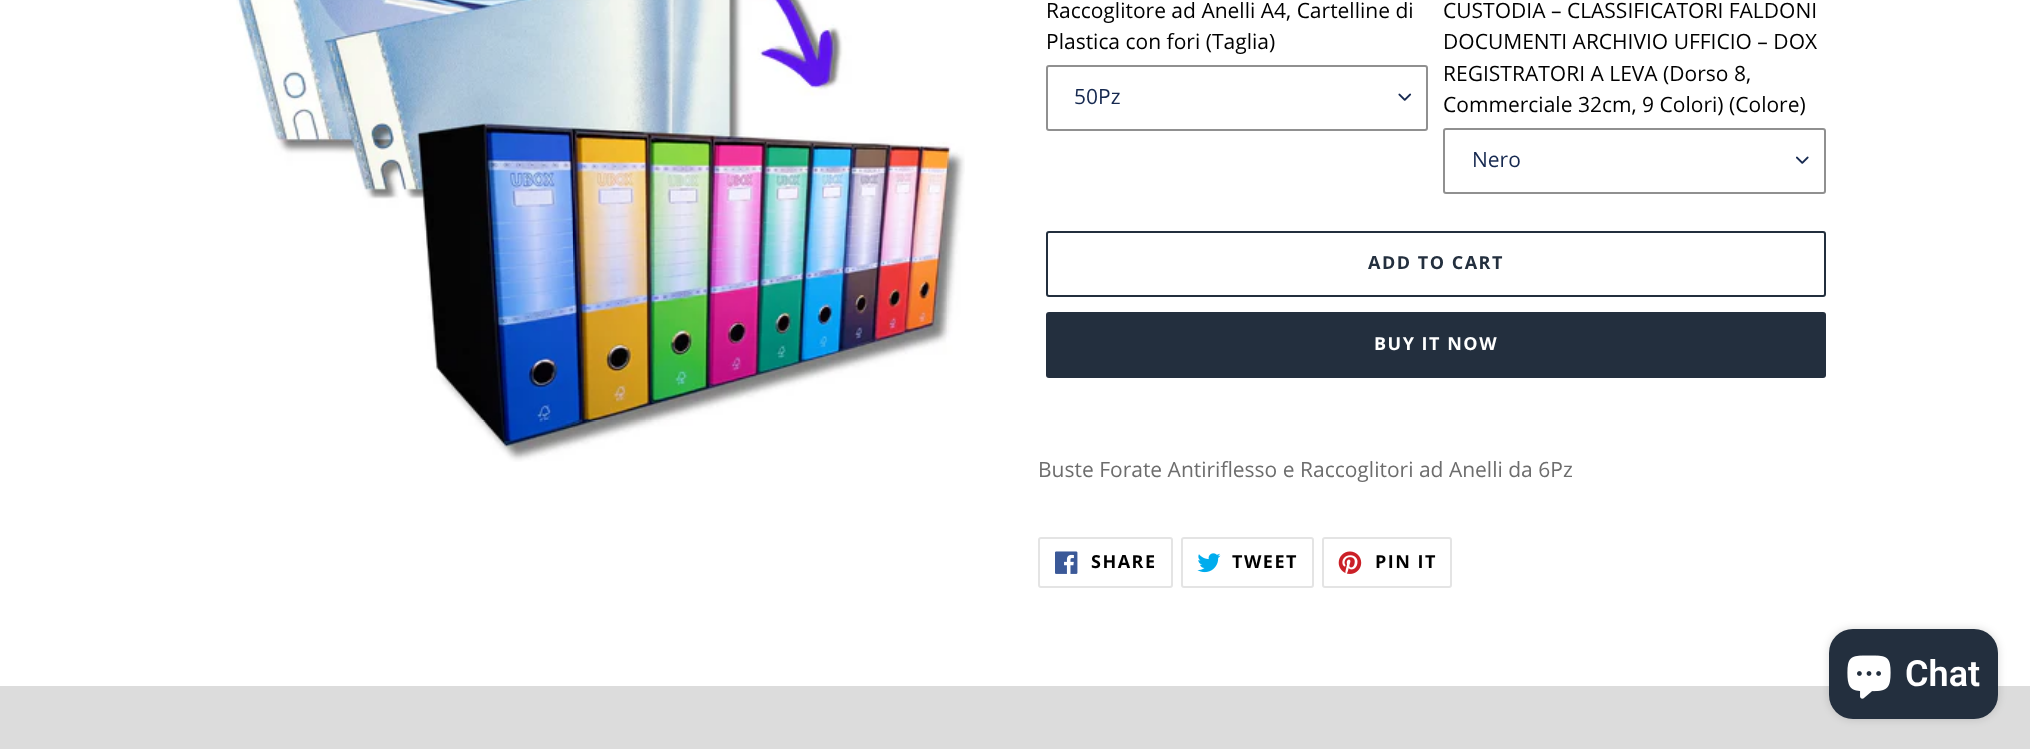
<svg xmlns="http://www.w3.org/2000/svg" width="2030" height="749" viewBox="0 0 2030 749">
  <rect width="100%" height="100%" fill="#fff"/>
  <image x="236" y="0" width="729" height="462" href="img/1.png"/>
  <image x="1398" y="93" width="14" height="8" href="img/2.png"/>
  <rect x="1047" y="66" width="380" height="64" rx="2" fill="none" stroke="#909090" stroke-width="2"/>
  <image x="1796" y="156" width="13" height="8" href="img/3.png"/>
  <rect x="1444" y="129" width="381" height="64" rx="2" fill="none" stroke="#909090" stroke-width="2"/>
  <rect x="1047" y="232" width="778" height="64" rx="2" fill="none" stroke="#232f3e" stroke-width="2"/>
  <rect x="1046" y="312" width="780" height="66" rx="3" fill="#232f3e"/>
  <rect x="1039" y="538" width="133" height="49" rx="2" fill="none" stroke="#e4e4e4" stroke-width="2"/>
  <image x="1055" y="551" width="23" height="23" href="img/4.png"/>
  <rect x="1182" y="538" width="131" height="49" rx="2" fill="none" stroke="#e4e4e4" stroke-width="2"/>
  <image x="1197" y="553" width="24" height="20" href="img/5.png"/>
  <rect x="1323" y="538" width="128" height="49" rx="2" fill="none" stroke="#e4e4e4" stroke-width="2"/>
  <image x="1338" y="551" width="24" height="23" href="img/6.png"/>
  <path d="M0 686h2030v63H0z" fill="#dcdcdc"/>
  <rect x="1829" y="629" width="169" height="90" rx="24" fill="#00000026" filter="blur(4px)"/>
  <rect x="1829" y="629" width="169" height="90" rx="24" fill="#232f3e"/>
  <image x="1847" y="655" width="44" height="44" href="img/7.png"/>
  <g font-family="Open Sans" font-size="21" fill="#000">
    <text x="1046" y="18">Raccoglitore ad Anelli A4, Cartelline di</text>
    <text x="1046" y="49">Plastica con fori (Taglia)</text>
  </g>
  <text x="1074" y="104" font-family="Open Sans" font-size="21" fill="#162950">50Pz</text>
  <g font-family="Open Sans" font-size="21" fill="#000">
    <text x="1443" y="18">CUSTODIA – CLASSIFICATORI FALDONI</text>
    <text x="1443" y="49">DOCUMENTI ARCHIVIO UFFICIO – DOX</text>
    <text x="1443" y="81">REGISTRATORI A LEVA (Dorso 8,</text>
    <text x="1443" y="112">Commerciale 32cm, 9 Colori) (Colore)</text>
  </g>
  <text x="1472" y="167" font-family="Open Sans" font-size="21" fill="#162950">Nero</text>
  <text x="1368" y="269" font-family="Open Sans" font-size="18" font-weight="bold" letter-spacing="1.5" fill="#232f3e">ADD TO CART</text>
  <text x="1374" y="350" font-family="Open Sans" font-size="18" font-weight="bold" letter-spacing="1.5" fill="#fff">BUY IT NOW</text>
  <text x="1038" y="477" font-family="Open Sans" font-size="21" fill="#6d6d6d">Buste Forate Antiriflesso e Raccoglitori ad Anelli da 6Pz</text>
  <g font-family="Open Sans" font-size="18" font-weight="bold" letter-spacing="1.5" fill="#000">
    <text x="1091" y="568">SHARE</text>
    <text x="1232" y="568">TWEET</text>
    <text x="1375" y="568">PIN IT</text>
  </g>
  <text x="1905" y="686" font-family="Roboto" font-size="36" font-weight="600" fill="#fff">Chat</text>
</svg>
